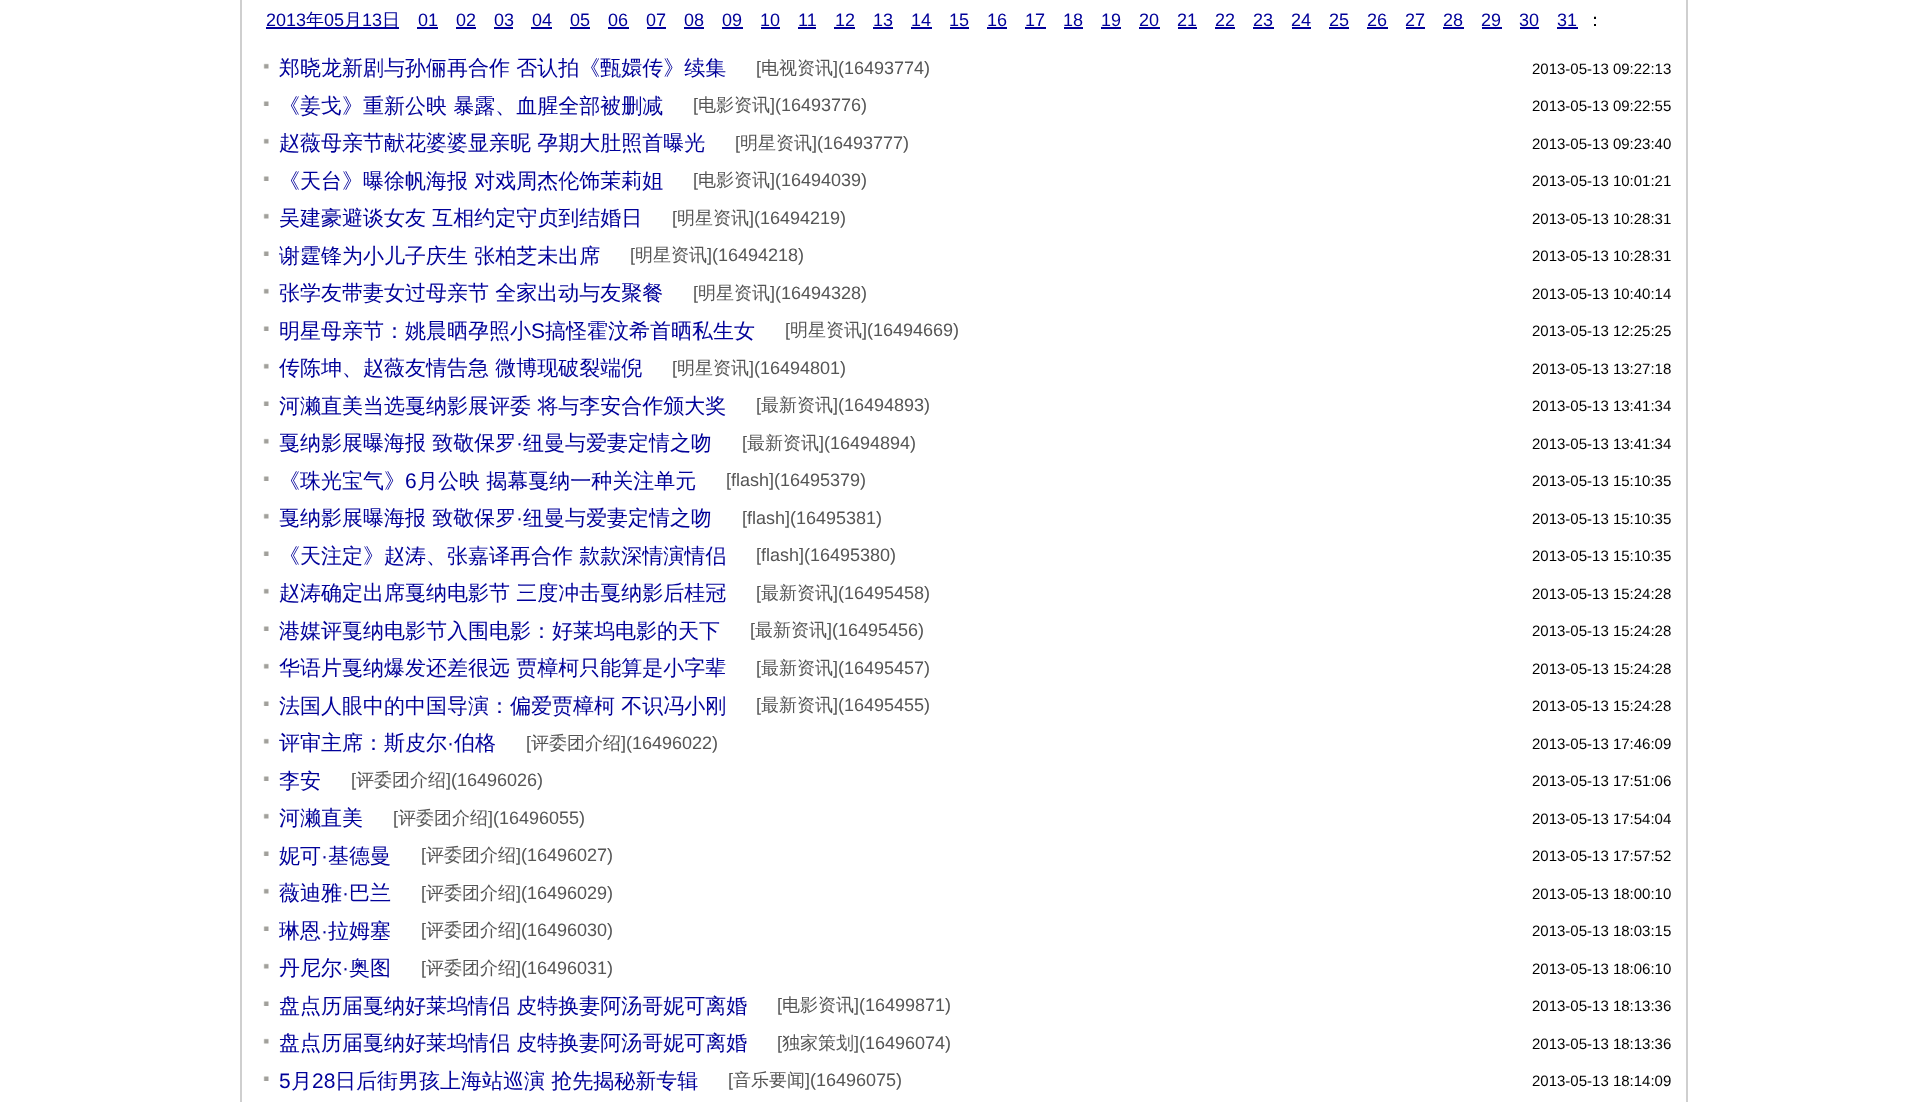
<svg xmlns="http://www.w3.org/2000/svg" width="1927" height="1102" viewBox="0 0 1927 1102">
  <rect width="100%" height="100%" fill="#fff"/>
  <path d="M1686 0h2v1102H1686z" fill="#cfcfcf"/>
  <path d="M240 0h2v1102H240z" fill="#cfcfcf"/>
  <path d="M266 27h133v2H266z" fill="#009"/>
  <path d="M417 27h21v2H417z" fill="#009"/>
  <path d="M456 27h20v2H456z" fill="#009"/>
  <path d="M494 27h19v2H494z" fill="#009"/>
  <path d="M531 27h21v2H531z" fill="#009"/>
  <path d="M570 27h20v2H570z" fill="#009"/>
  <path d="M608 27h21v2H608z" fill="#009"/>
  <path d="M647 27h19v2H647z" fill="#009"/>
  <path d="M684 27h20v2H684z" fill="#009"/>
  <path d="M722 27h21v2H722z" fill="#009"/>
  <path d="M761 27h19v2H761z" fill="#009"/>
  <path d="M798 27h18v2H798z" fill="#009"/>
  <path d="M834 27h21v2H834z" fill="#009"/>
  <path d="M873 27h20v2H873z" fill="#009"/>
  <path d="M911 27h21v2H911z" fill="#009"/>
  <path d="M950 27h19v2H950z" fill="#009"/>
  <path d="M987 27h20v2H987z" fill="#009"/>
  <path d="M1025 27h21v2H1025z" fill="#009"/>
  <path d="M1064 27h19v2H1064z" fill="#009"/>
  <path d="M1101 27h20v2H1101z" fill="#009"/>
  <path d="M1139 27h21v2H1139z" fill="#009"/>
  <path d="M1178 27h19v2H1178z" fill="#009"/>
  <path d="M1215 27h20v2H1215z" fill="#009"/>
  <path d="M1253 27h21v2H1253z" fill="#009"/>
  <path d="M1292 27h19v2H1292z" fill="#009"/>
  <path d="M1329 27h20v2H1329z" fill="#009"/>
  <path d="M1367 27h21v2H1367z" fill="#009"/>
  <path d="M1406 27h19v2H1406z" fill="#009"/>
  <path d="M1443 27h21v2H1443z" fill="#009"/>
  <path d="M1482 27h20v2H1482z" fill="#009"/>
  <path d="M1520 27h19v2H1520z" fill="#009"/>
  <path d="M1557 27h21v2H1557z" fill="#009"/>
  <image x="263" y="63" width="6" height="6" href="img/1.png"/>
  <image x="263" y="101" width="6" height="5" href="img/2.png"/>
  <image x="263" y="138" width="6" height="6" href="img/1.png"/>
  <image x="263" y="176" width="6" height="5" href="img/2.png"/>
  <image x="263" y="213" width="6" height="6" href="img/1.png"/>
  <image x="263" y="251" width="6" height="5" href="img/2.png"/>
  <image x="263" y="288" width="6" height="6" href="img/1.png"/>
  <image x="263" y="326" width="6" height="5" href="img/2.png"/>
  <image x="263" y="363" width="6" height="6" href="img/1.png"/>
  <image x="263" y="401" width="6" height="5" href="img/2.png"/>
  <image x="263" y="438" width="6" height="6" href="img/1.png"/>
  <image x="263" y="476" width="6" height="5" href="img/2.png"/>
  <image x="263" y="513" width="6" height="6" href="img/1.png"/>
  <image x="263" y="551" width="6" height="5" href="img/2.png"/>
  <image x="263" y="588" width="6" height="6" href="img/1.png"/>
  <image x="263" y="626" width="6" height="5" href="img/2.png"/>
  <image x="263" y="663" width="6" height="6" href="img/1.png"/>
  <image x="263" y="701" width="6" height="5" href="img/2.png"/>
  <image x="263" y="738" width="6" height="6" href="img/1.png"/>
  <image x="263" y="776" width="6" height="5" href="img/2.png"/>
  <image x="263" y="813" width="6" height="6" href="img/1.png"/>
  <image x="263" y="851" width="6" height="5" href="img/2.png"/>
  <image x="263" y="888" width="6" height="6" href="img/1.png"/>
  <image x="263" y="926" width="6" height="5" href="img/2.png"/>
  <image x="263" y="963" width="6" height="6" href="img/1.png"/>
  <image x="263" y="1001" width="6" height="5" href="img/2.png"/>
  <image x="263" y="1038" width="6" height="6" href="img/1.png"/>
  <image x="263" y="1076" width="6" height="5" href="img/2.png"/>
  <text x="266" y="26" font-family="Liberation Sans" font-size="18" fill="#009">2013</text>
  <text x="306" y="26" font-family="WenQuanYi Zen Hei" font-size="18" font-weight="500" fill="#009">年</text>
  <text x="324" y="26" font-family="Liberation Sans" font-size="18" fill="#009">05</text>
  <text x="344" y="26" font-family="WenQuanYi Zen Hei" font-size="18" font-weight="500" fill="#009">月</text>
  <text x="362" y="26" font-family="Liberation Sans" font-size="18" fill="#009">13</text>
  <text x="382" y="26" font-family="WenQuanYi Zen Hei" font-size="18" font-weight="500" fill="#009">日</text>
  <g font-family="Liberation Sans" font-size="18" fill="#009">
    <text x="418" y="26">01</text>
    <text x="456" y="26">02</text>
    <text x="494" y="26">03</text>
    <text x="532" y="26">04</text>
    <text x="570" y="26">05</text>
    <text x="608" y="26">06</text>
    <text x="646" y="26">07</text>
    <text x="684" y="26">08</text>
    <text x="722" y="26">09</text>
    <text x="760" y="26">10</text>
    <text x="798" y="26">11</text>
    <text x="835" y="26">12</text>
    <text x="873" y="26">13</text>
    <text x="911" y="26">14</text>
    <text x="949" y="26">15</text>
    <text x="987" y="26">16</text>
    <text x="1025" y="26">17</text>
    <text x="1063" y="26">18</text>
    <text x="1101" y="26">19</text>
    <text x="1139" y="26">20</text>
    <text x="1177" y="26">21</text>
    <text x="1215" y="26">22</text>
    <text x="1253" y="26">23</text>
    <text x="1291" y="26">24</text>
    <text x="1329" y="26">25</text>
    <text x="1367" y="26">26</text>
    <text x="1405" y="26">27</text>
    <text x="1443" y="26">28</text>
    <text x="1481" y="26">29</text>
    <text x="1519" y="26">30</text>
    <text x="1557" y="26">31</text>
  </g>
  <text x="1586" y="26" font-family="WenQuanYi Zen Hei" font-size="18" font-weight="500" fill="#000">：</text>
  <text x="279" y="75" font-family="WenQuanYi Zen Hei" font-size="21" font-weight="500" fill="#009">郑晓龙新剧与孙俪再合作 否认拍《甄嬛传》续集</text>
  <text x="756" y="74" font-family="Liberation Sans" font-size="18" fill="#555">[</text>
  <text x="761" y="74" font-family="WenQuanYi Zen Hei" font-size="18" font-weight="500" fill="#555">电视资讯</text>
  <text x="833" y="74" font-family="Liberation Sans" font-size="18" fill="#555">](16493774)</text>
  <text x="1532" y="74" font-family="Liberation Sans" font-size="15" fill="#000">2013-05-13 09:22:13</text>
  <text x="279" y="113" font-family="WenQuanYi Zen Hei" font-size="21" font-weight="500" fill="#009">《姜戈》重新公映 暴露、血腥全部被删减</text>
  <text x="693" y="111" font-family="Liberation Sans" font-size="18" fill="#555">[</text>
  <text x="698" y="111" font-family="WenQuanYi Zen Hei" font-size="18" font-weight="500" fill="#555">电影资讯</text>
  <text x="770" y="111" font-family="Liberation Sans" font-size="18" fill="#555">](16493776)</text>
  <text x="1532" y="111" font-family="Liberation Sans" font-size="15" fill="#000">2013-05-13 09:22:55</text>
  <text x="279" y="150" font-family="WenQuanYi Zen Hei" font-size="21" font-weight="500" fill="#009">赵薇母亲节献花婆婆显亲昵 孕期大肚照首曝光</text>
  <text x="735" y="149" font-family="Liberation Sans" font-size="18" fill="#555">[</text>
  <text x="740" y="149" font-family="WenQuanYi Zen Hei" font-size="18" font-weight="500" fill="#555">明星资讯</text>
  <text x="812" y="149" font-family="Liberation Sans" font-size="18" fill="#555">](16493777)</text>
  <text x="1532" y="149" font-family="Liberation Sans" font-size="15" fill="#000">2013-05-13 09:23:40</text>
  <text x="279" y="188" font-family="WenQuanYi Zen Hei" font-size="21" font-weight="500" fill="#009">《天台》曝徐帆海报 对戏周杰伦饰茉莉姐</text>
  <text x="693" y="186" font-family="Liberation Sans" font-size="18" fill="#555">[</text>
  <text x="698" y="186" font-family="WenQuanYi Zen Hei" font-size="18" font-weight="500" fill="#555">电影资讯</text>
  <text x="770" y="186" font-family="Liberation Sans" font-size="18" fill="#555">](16494039)</text>
  <text x="1532" y="186" font-family="Liberation Sans" font-size="15" fill="#000">2013-05-13 10:01:21</text>
  <text x="279" y="225" font-family="WenQuanYi Zen Hei" font-size="21" font-weight="500" fill="#009">吴建豪避谈女友 互相约定守贞到结婚日</text>
  <text x="672" y="224" font-family="Liberation Sans" font-size="18" fill="#555">[</text>
  <text x="677" y="224" font-family="WenQuanYi Zen Hei" font-size="18" font-weight="500" fill="#555">明星资讯</text>
  <text x="749" y="224" font-family="Liberation Sans" font-size="18" fill="#555">](16494219)</text>
  <text x="1532" y="224" font-family="Liberation Sans" font-size="15" fill="#000">2013-05-13 10:28:31</text>
  <text x="279" y="263" font-family="WenQuanYi Zen Hei" font-size="21" font-weight="500" fill="#009">谢霆锋为小儿子庆生 张柏芝未出席</text>
  <text x="630" y="261" font-family="Liberation Sans" font-size="18" fill="#555">[</text>
  <text x="635" y="261" font-family="WenQuanYi Zen Hei" font-size="18" font-weight="500" fill="#555">明星资讯</text>
  <text x="707" y="261" font-family="Liberation Sans" font-size="18" fill="#555">](16494218)</text>
  <text x="1532" y="261" font-family="Liberation Sans" font-size="15" fill="#000">2013-05-13 10:28:31</text>
  <text x="279" y="300" font-family="WenQuanYi Zen Hei" font-size="21" font-weight="500" fill="#009">张学友带妻女过母亲节 全家出动与友聚餐</text>
  <text x="693" y="299" font-family="Liberation Sans" font-size="18" fill="#555">[</text>
  <text x="698" y="299" font-family="WenQuanYi Zen Hei" font-size="18" font-weight="500" fill="#555">明星资讯</text>
  <text x="770" y="299" font-family="Liberation Sans" font-size="18" fill="#555">](16494328)</text>
  <text x="1532" y="299" font-family="Liberation Sans" font-size="15" fill="#000">2013-05-13 10:40:14</text>
  <text x="279" y="338" font-family="WenQuanYi Zen Hei" font-size="21" font-weight="500" fill="#009">明星母亲节：姚晨晒孕照小</text>
  <text x="531" y="338" font-family="Liberation Sans" font-size="21" fill="#009">S</text>
  <text x="545" y="338" font-family="WenQuanYi Zen Hei" font-size="21" font-weight="500" fill="#009">搞怪霍汶希首晒私生女</text>
  <text x="785" y="336" font-family="Liberation Sans" font-size="18" fill="#555">[</text>
  <text x="790" y="336" font-family="WenQuanYi Zen Hei" font-size="18" font-weight="500" fill="#555">明星资讯</text>
  <text x="862" y="336" font-family="Liberation Sans" font-size="18" fill="#555">](16494669)</text>
  <text x="1532" y="336" font-family="Liberation Sans" font-size="15" fill="#000">2013-05-13 12:25:25</text>
  <text x="279" y="375" font-family="WenQuanYi Zen Hei" font-size="21" font-weight="500" fill="#009">传陈坤、赵薇友情告急 微博现破裂端倪</text>
  <text x="672" y="374" font-family="Liberation Sans" font-size="18" fill="#555">[</text>
  <text x="677" y="374" font-family="WenQuanYi Zen Hei" font-size="18" font-weight="500" fill="#555">明星资讯</text>
  <text x="749" y="374" font-family="Liberation Sans" font-size="18" fill="#555">](16494801)</text>
  <text x="1532" y="374" font-family="Liberation Sans" font-size="15" fill="#000">2013-05-13 13:27:18</text>
  <text x="279" y="413" font-family="WenQuanYi Zen Hei" font-size="21" font-weight="500" fill="#009">河濑直美当选戛纳影展评委 将与李安合作颁大奖</text>
  <text x="756" y="411" font-family="Liberation Sans" font-size="18" fill="#555">[</text>
  <text x="761" y="411" font-family="WenQuanYi Zen Hei" font-size="18" font-weight="500" fill="#555">最新资讯</text>
  <text x="833" y="411" font-family="Liberation Sans" font-size="18" fill="#555">](16494893)</text>
  <text x="1532" y="411" font-family="Liberation Sans" font-size="15" fill="#000">2013-05-13 13:41:34</text>
  <text x="279" y="450" font-family="WenQuanYi Zen Hei" font-size="21" font-weight="500" fill="#009">戛纳影展曝海报 致敬保罗</text>
  <text x="516" y="450" font-family="Liberation Sans" font-size="21" fill="#009">·</text>
  <text x="523" y="450" font-family="WenQuanYi Zen Hei" font-size="21" font-weight="500" fill="#009">纽曼与爱妻定情之吻</text>
  <text x="742" y="449" font-family="Liberation Sans" font-size="18" fill="#555">[</text>
  <text x="747" y="449" font-family="WenQuanYi Zen Hei" font-size="18" font-weight="500" fill="#555">最新资讯</text>
  <text x="819" y="449" font-family="Liberation Sans" font-size="18" fill="#555">](16494894)</text>
  <text x="1532" y="449" font-family="Liberation Sans" font-size="15" fill="#000">2013-05-13 13:41:34</text>
  <text x="279" y="488" font-family="WenQuanYi Zen Hei" font-size="21" font-weight="500" fill="#009">《珠光宝气》</text>
  <text x="405" y="488" font-family="Liberation Sans" font-size="21" fill="#009">6</text>
  <text x="417" y="488" font-family="WenQuanYi Zen Hei" font-size="21" font-weight="500" fill="#009">月公映 揭幕戛纳一种关注单元</text>
  <text x="726" y="486" font-family="Liberation Sans" font-size="18" fill="#555">[flash](16495379)</text>
  <text x="1532" y="486" font-family="Liberation Sans" font-size="15" fill="#000">2013-05-13 15:10:35</text>
  <text x="279" y="525" font-family="WenQuanYi Zen Hei" font-size="21" font-weight="500" fill="#009">戛纳影展曝海报 致敬保罗</text>
  <text x="516" y="525" font-family="Liberation Sans" font-size="21" fill="#009">·</text>
  <text x="523" y="525" font-family="WenQuanYi Zen Hei" font-size="21" font-weight="500" fill="#009">纽曼与爱妻定情之吻</text>
  <text x="742" y="524" font-family="Liberation Sans" font-size="18" fill="#555">[flash](16495381)</text>
  <text x="1532" y="524" font-family="Liberation Sans" font-size="15" fill="#000">2013-05-13 15:10:35</text>
  <text x="279" y="563" font-family="WenQuanYi Zen Hei" font-size="21" font-weight="500" fill="#009">《天注定》赵涛、张嘉译再合作 款款深情演情侣</text>
  <text x="756" y="561" font-family="Liberation Sans" font-size="18" fill="#555">[flash](16495380)</text>
  <text x="1532" y="561" font-family="Liberation Sans" font-size="15" fill="#000">2013-05-13 15:10:35</text>
  <text x="279" y="600" font-family="WenQuanYi Zen Hei" font-size="21" font-weight="500" fill="#009">赵涛确定出席戛纳电影节 三度冲击戛纳影后桂冠</text>
  <text x="756" y="599" font-family="Liberation Sans" font-size="18" fill="#555">[</text>
  <text x="761" y="599" font-family="WenQuanYi Zen Hei" font-size="18" font-weight="500" fill="#555">最新资讯</text>
  <text x="833" y="599" font-family="Liberation Sans" font-size="18" fill="#555">](16495458)</text>
  <text x="1532" y="599" font-family="Liberation Sans" font-size="15" fill="#000">2013-05-13 15:24:28</text>
  <text x="279" y="638" font-family="WenQuanYi Zen Hei" font-size="21" font-weight="500" fill="#009">港媒评戛纳电影节入围电影：好莱坞电影的天下</text>
  <text x="750" y="636" font-family="Liberation Sans" font-size="18" fill="#555">[</text>
  <text x="755" y="636" font-family="WenQuanYi Zen Hei" font-size="18" font-weight="500" fill="#555">最新资讯</text>
  <text x="827" y="636" font-family="Liberation Sans" font-size="18" fill="#555">](16495456)</text>
  <text x="1532" y="636" font-family="Liberation Sans" font-size="15" fill="#000">2013-05-13 15:24:28</text>
  <text x="279" y="675" font-family="WenQuanYi Zen Hei" font-size="21" font-weight="500" fill="#009">华语片戛纳爆发还差很远 贾樟柯只能算是小字辈</text>
  <text x="756" y="674" font-family="Liberation Sans" font-size="18" fill="#555">[</text>
  <text x="761" y="674" font-family="WenQuanYi Zen Hei" font-size="18" font-weight="500" fill="#555">最新资讯</text>
  <text x="833" y="674" font-family="Liberation Sans" font-size="18" fill="#555">](16495457)</text>
  <text x="1532" y="674" font-family="Liberation Sans" font-size="15" fill="#000">2013-05-13 15:24:28</text>
  <text x="279" y="713" font-family="WenQuanYi Zen Hei" font-size="21" font-weight="500" fill="#009">法国人眼中的中国导演：偏爱贾樟柯 不识冯小刚</text>
  <text x="756" y="711" font-family="Liberation Sans" font-size="18" fill="#555">[</text>
  <text x="761" y="711" font-family="WenQuanYi Zen Hei" font-size="18" font-weight="500" fill="#555">最新资讯</text>
  <text x="833" y="711" font-family="Liberation Sans" font-size="18" fill="#555">](16495455)</text>
  <text x="1532" y="711" font-family="Liberation Sans" font-size="15" fill="#000">2013-05-13 15:24:28</text>
  <text x="279" y="750" font-family="WenQuanYi Zen Hei" font-size="21" font-weight="500" fill="#009">评审主席：斯皮尔</text>
  <text x="447" y="750" font-family="Liberation Sans" font-size="21" fill="#009">·</text>
  <text x="454" y="750" font-family="WenQuanYi Zen Hei" font-size="21" font-weight="500" fill="#009">伯格</text>
  <text x="526" y="749" font-family="Liberation Sans" font-size="18" fill="#555">[</text>
  <text x="531" y="749" font-family="WenQuanYi Zen Hei" font-size="18" font-weight="500" fill="#555">评委团介绍</text>
  <text x="621" y="749" font-family="Liberation Sans" font-size="18" fill="#555">](16496022)</text>
  <text x="1532" y="749" font-family="Liberation Sans" font-size="15" fill="#000">2013-05-13 17:46:09</text>
  <text x="279" y="788" font-family="WenQuanYi Zen Hei" font-size="21" font-weight="500" fill="#009">李安</text>
  <text x="351" y="786" font-family="Liberation Sans" font-size="18" fill="#555">[</text>
  <text x="356" y="786" font-family="WenQuanYi Zen Hei" font-size="18" font-weight="500" fill="#555">评委团介绍</text>
  <text x="446" y="786" font-family="Liberation Sans" font-size="18" fill="#555">](16496026)</text>
  <text x="1532" y="786" font-family="Liberation Sans" font-size="15" fill="#000">2013-05-13 17:51:06</text>
  <text x="279" y="825" font-family="WenQuanYi Zen Hei" font-size="21" font-weight="500" fill="#009">河濑直美</text>
  <text x="393" y="824" font-family="Liberation Sans" font-size="18" fill="#555">[</text>
  <text x="398" y="824" font-family="WenQuanYi Zen Hei" font-size="18" font-weight="500" fill="#555">评委团介绍</text>
  <text x="488" y="824" font-family="Liberation Sans" font-size="18" fill="#555">](16496055)</text>
  <text x="1532" y="824" font-family="Liberation Sans" font-size="15" fill="#000">2013-05-13 17:54:04</text>
  <text x="279" y="863" font-family="WenQuanYi Zen Hei" font-size="21" font-weight="500" fill="#009">妮可</text>
  <text x="321" y="863" font-family="Liberation Sans" font-size="21" fill="#009">·</text>
  <text x="328" y="863" font-family="WenQuanYi Zen Hei" font-size="21" font-weight="500" fill="#009">基德曼</text>
  <text x="421" y="861" font-family="Liberation Sans" font-size="18" fill="#555">[</text>
  <text x="426" y="861" font-family="WenQuanYi Zen Hei" font-size="18" font-weight="500" fill="#555">评委团介绍</text>
  <text x="516" y="861" font-family="Liberation Sans" font-size="18" fill="#555">](16496027)</text>
  <text x="1532" y="861" font-family="Liberation Sans" font-size="15" fill="#000">2013-05-13 17:57:52</text>
  <text x="279" y="900" font-family="WenQuanYi Zen Hei" font-size="21" font-weight="500" fill="#009">薇迪雅</text>
  <text x="342" y="900" font-family="Liberation Sans" font-size="21" fill="#009">·</text>
  <text x="349" y="900" font-family="WenQuanYi Zen Hei" font-size="21" font-weight="500" fill="#009">巴兰</text>
  <text x="421" y="899" font-family="Liberation Sans" font-size="18" fill="#555">[</text>
  <text x="426" y="899" font-family="WenQuanYi Zen Hei" font-size="18" font-weight="500" fill="#555">评委团介绍</text>
  <text x="516" y="899" font-family="Liberation Sans" font-size="18" fill="#555">](16496029)</text>
  <text x="1532" y="899" font-family="Liberation Sans" font-size="15" fill="#000">2013-05-13 18:00:10</text>
  <text x="279" y="938" font-family="WenQuanYi Zen Hei" font-size="21" font-weight="500" fill="#009">琳恩</text>
  <text x="321" y="938" font-family="Liberation Sans" font-size="21" fill="#009">·</text>
  <text x="328" y="938" font-family="WenQuanYi Zen Hei" font-size="21" font-weight="500" fill="#009">拉姆塞</text>
  <text x="421" y="936" font-family="Liberation Sans" font-size="18" fill="#555">[</text>
  <text x="426" y="936" font-family="WenQuanYi Zen Hei" font-size="18" font-weight="500" fill="#555">评委团介绍</text>
  <text x="516" y="936" font-family="Liberation Sans" font-size="18" fill="#555">](16496030)</text>
  <text x="1532" y="936" font-family="Liberation Sans" font-size="15" fill="#000">2013-05-13 18:03:15</text>
  <text x="279" y="975" font-family="WenQuanYi Zen Hei" font-size="21" font-weight="500" fill="#009">丹尼尔</text>
  <text x="342" y="975" font-family="Liberation Sans" font-size="21" fill="#009">·</text>
  <text x="349" y="975" font-family="WenQuanYi Zen Hei" font-size="21" font-weight="500" fill="#009">奥图</text>
  <text x="421" y="974" font-family="Liberation Sans" font-size="18" fill="#555">[</text>
  <text x="426" y="974" font-family="WenQuanYi Zen Hei" font-size="18" font-weight="500" fill="#555">评委团介绍</text>
  <text x="516" y="974" font-family="Liberation Sans" font-size="18" fill="#555">](16496031)</text>
  <text x="1532" y="974" font-family="Liberation Sans" font-size="15" fill="#000">2013-05-13 18:06:10</text>
  <text x="279" y="1013" font-family="WenQuanYi Zen Hei" font-size="21" font-weight="500" fill="#009">盘点历届戛纳好莱坞情侣 皮特换妻阿汤哥妮可离婚</text>
  <text x="777" y="1011" font-family="Liberation Sans" font-size="18" fill="#555">[</text>
  <text x="782" y="1011" font-family="WenQuanYi Zen Hei" font-size="18" font-weight="500" fill="#555">电影资讯</text>
  <text x="854" y="1011" font-family="Liberation Sans" font-size="18" fill="#555">](16499871)</text>
  <text x="1532" y="1011" font-family="Liberation Sans" font-size="15" fill="#000">2013-05-13 18:13:36</text>
  <text x="279" y="1050" font-family="WenQuanYi Zen Hei" font-size="21" font-weight="500" fill="#009">盘点历届戛纳好莱坞情侣 皮特换妻阿汤哥妮可离婚</text>
  <text x="777" y="1049" font-family="Liberation Sans" font-size="18" fill="#555">[</text>
  <text x="782" y="1049" font-family="WenQuanYi Zen Hei" font-size="18" font-weight="500" fill="#555">独家策划</text>
  <text x="854" y="1049" font-family="Liberation Sans" font-size="18" fill="#555">](16496074)</text>
  <text x="1532" y="1049" font-family="Liberation Sans" font-size="15" fill="#000">2013-05-13 18:13:36</text>
  <text x="279" y="1088" font-family="Liberation Sans" font-size="21" fill="#009">5</text>
  <text x="291" y="1088" font-family="WenQuanYi Zen Hei" font-size="21" font-weight="500" fill="#009">月</text>
  <text x="312" y="1088" font-family="Liberation Sans" font-size="21" fill="#009">28</text>
  <text x="335" y="1088" font-family="WenQuanYi Zen Hei" font-size="21" font-weight="500" fill="#009">日后街男孩上海站巡演 抢先揭秘新专辑</text>
  <text x="728" y="1086" font-family="Liberation Sans" font-size="18" fill="#555">[</text>
  <text x="733" y="1086" font-family="WenQuanYi Zen Hei" font-size="18" font-weight="500" fill="#555">音乐要闻</text>
  <text x="805" y="1086" font-family="Liberation Sans" font-size="18" fill="#555">](16496075)</text>
  <text x="1532" y="1086" font-family="Liberation Sans" font-size="15" fill="#000">2013-05-13 18:14:09</text>
</svg>
